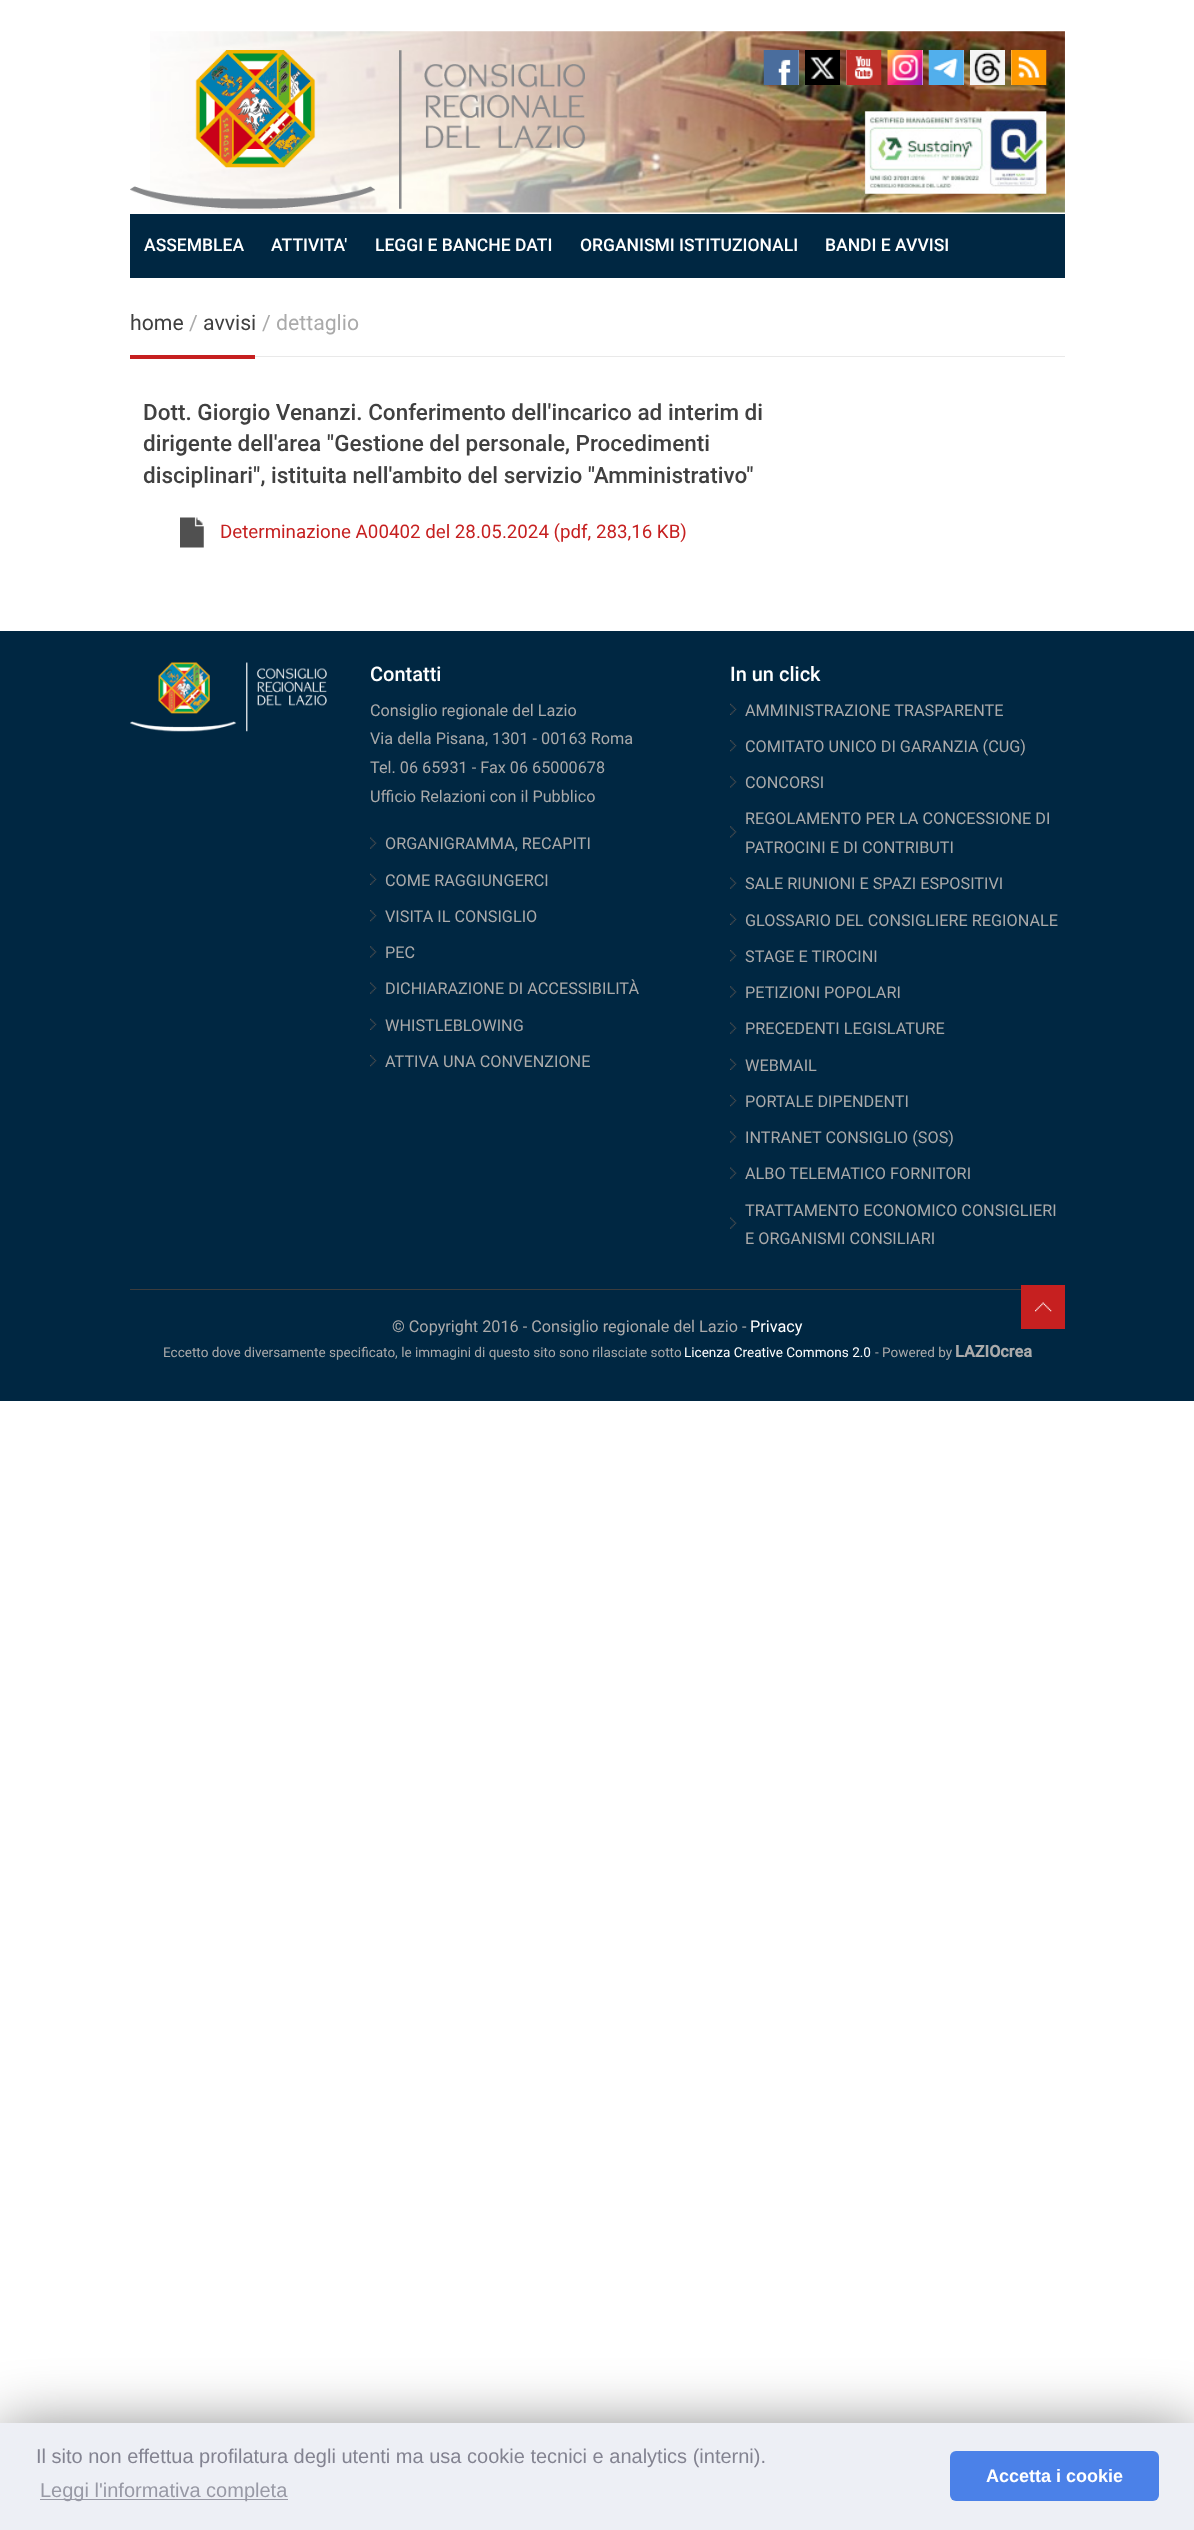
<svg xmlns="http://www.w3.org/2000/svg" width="1194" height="2530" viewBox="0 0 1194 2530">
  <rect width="100%" height="100%" fill="#fff"/>
  <image x="150" y="31" width="915" height="182" href="img/1.png"/>
  <image x="130" y="50" width="455" height="159" href="img/2.png"/>
  <path d="M778 50h21v35H778z" fill="#fff"/>
  <image x="763" y="50" width="36" height="35" href="img/3.png"/>
  <image x="805" y="50" width="35" height="35" href="img/4.png"/>
  <path d="M846 50h27v35H846z" fill="#fff"/>
  <image x="846" y="50" width="36" height="35" href="img/5.png"/>
  <path d="M922 50h1v35H922z" fill="#fff"/>
  <image x="887" y="50" width="36" height="35" href="img/6.png"/>
  <path d="M933 50h31v35H933z" fill="#fff"/>
  <image x="928" y="50" width="36" height="35" href="img/7.png"/>
  <image x="970" y="50" width="35" height="35" href="img/8.png"/>
  <path d="M1011 50h32v35H1011z" fill="#fff"/>
  <image x="1011" y="50" width="36" height="35" href="img/9.png"/>
  <path d="M130 214h935v64H130z" fill="#002742"/>
  <path d="M255 356h810v1H255z" fill="#e9e9e9"/>
  <path d="M130 355h125v4H130z" fill="#c62020"/>
  <image x="180" y="517" width="24" height="31" href="img/10.png"/>
  <path d="M0 631h1194v770H0z" fill="#002742"/>
  <image x="130" y="662" width="197" height="70" href="img/11.png"/>
  <image x="370" y="837" width="7" height="12" href="img/12.png"/>
  <image x="370" y="873" width="7" height="12" href="img/13.png"/>
  <image x="370" y="910" width="7" height="12" href="img/14.png"/>
  <image x="370" y="946" width="7" height="12" href="img/15.png"/>
  <image x="370" y="982" width="7" height="12" href="img/12.png"/>
  <image x="370" y="1018" width="7" height="12" href="img/13.png"/>
  <image x="370" y="1055" width="7" height="12" href="img/14.png"/>
  <image x="730" y="703" width="7" height="12" href="img/16.png"/>
  <image x="730" y="740" width="7" height="12" href="img/17.png"/>
  <image x="730" y="776" width="7" height="12" href="img/18.png"/>
  <image x="730" y="826" width="7" height="12" href="img/19.png"/>
  <image x="730" y="877" width="7" height="12" href="img/20.png"/>
  <image x="730" y="913" width="7" height="12" href="img/16.png"/>
  <image x="730" y="950" width="7" height="12" href="img/17.png"/>
  <image x="730" y="986" width="7" height="12" href="img/19.png"/>
  <image x="730" y="1022" width="7" height="12" href="img/21.png"/>
  <image x="730" y="1058" width="7" height="12" href="img/16.png"/>
  <image x="730" y="1095" width="7" height="12" href="img/17.png"/>
  <image x="730" y="1131" width="7" height="12" href="img/19.png"/>
  <image x="730" y="1167" width="7" height="12" href="img/22.png"/>
  <image x="730" y="1217" width="7" height="12" href="img/20.png"/>
  <path d="M130 1289h891v1H130z" fill="#3c3c3c"/>
  <path d="M1021 1285h44v44H1021z" fill="#c62020"/>
  <image x="1035" y="1302" width="17" height="10" href="img/23.png"/>
  <path d="M0 2429h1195v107H0z" fill="#00000080" filter="blur(31px)"/>
  <path d="M0 2423h1194v107H0z" fill="#edeff5"/>
  <path d="M40 2499h248v1H40z" fill="#9899a5"/>
  <rect x="950" y="2451" width="209" height="50" rx="6" fill="#4b81e8"/>
  <g font-family="Roboto" font-size="17.5" font-weight="500" fill="#fff">
    <text x="144" y="251">ASSEMBLEA</text>
    <text x="271" y="251">ATTIVITA'</text>
    <text x="375" y="251">LEGGI E BANCHE DATI</text>
    <text x="580" y="251">ORGANISMI ISTITUZIONALI</text>
    <text x="825" y="251">BANDI E AVVISI</text>
  </g>
  <text x="130" y="330" font-family="Roboto" font-size="21.25" fill="#404040">home</text>
  <text x="189" y="330" font-family="Roboto" font-size="21.25" fill="#aaa">/</text>
  <text x="203" y="330" font-family="Roboto" font-size="21.25" fill="#404040">avvisi</text>
  <text x="262" y="330" font-family="Roboto" font-size="21.25" fill="#aaa">/ dettaglio</text>
  <g font-family="Roboto" font-size="22.5" font-weight="500" fill="#404040">
    <text x="143" y="420">Dott. Giorgio Venanzi. Conferimento dell'incarico ad interim di</text>
    <text x="143" y="451">dirigente dell'area "Gestione del personale, Procedimenti</text>
    <text x="143" y="483">disciplinari", istituita nell'ambito del servizio "Amministrativo"</text>
  </g>
  <text x="220" y="538" font-family="Roboto" font-size="18.75" fill="#c62020">Determinazione A00402 del 28.05.2024 (pdf, 283,16 KB)</text>
  <text x="370" y="681" font-family="Roboto" font-size="20" font-weight="500" fill="#fff">Contatti</text>
  <g font-family="Roboto" font-size="16.25" fill="#aaa">
    <text x="370" y="716">Consiglio regionale del Lazio</text>
    <text x="370" y="744">Via della Pisana, 1301 - 00163 Roma</text>
    <text x="370" y="773">Tel. 06 65931 - Fax 06 65000678</text>
    <text x="370" y="802">Ufficio Relazioni con il Pubblico</text>
    <text x="385" y="849">ORGANIGRAMMA, RECAPITI</text>
    <text x="385" y="886">COME RAGGIUNGERCI</text>
    <text x="385" y="922">VISITA IL CONSIGLIO</text>
    <text x="385" y="958">PEC</text>
    <text x="385" y="994">DICHIARAZIONE DI ACCESSIBILITÀ</text>
    <text x="385" y="1031">WHISTLEBLOWING</text>
    <text x="385" y="1067">ATTIVA UNA CONVENZIONE</text>
  </g>
  <text x="730" y="681" font-family="Roboto" font-size="20" font-weight="500" fill="#fff">In un click</text>
  <g font-family="Roboto" font-size="16.25" fill="#aaa">
    <text x="745" y="716">AMMINISTRAZIONE TRASPARENTE</text>
    <text x="745" y="752">COMITATO UNICO DI GARANZIA (CUG)</text>
    <text x="745" y="788">CONCORSI</text>
    <text x="745" y="824">REGOLAMENTO PER LA CONCESSIONE DI</text>
    <text x="745" y="853">PATROCINI E DI CONTRIBUTI</text>
    <text x="745" y="889">SALE RIUNIONI E SPAZI ESPOSITIVI</text>
    <text x="745" y="926">GLOSSARIO DEL CONSIGLIERE REGIONALE</text>
    <text x="745" y="962">STAGE E TIROCINI</text>
    <text x="745" y="998">PETIZIONI POPOLARI</text>
    <text x="745" y="1034">PRECEDENTI LEGISLATURE</text>
    <text x="745" y="1071">WEBMAIL</text>
    <text x="745" y="1107">PORTALE DIPENDENTI</text>
    <text x="745" y="1143">INTRANET CONSIGLIO (SOS)</text>
    <text x="745" y="1179">ALBO TELEMATICO FORNITORI</text>
    <text x="745" y="1216">TRATTAMENTO ECONOMICO CONSIGLIERI</text>
    <text x="745" y="1244">E ORGANISMI CONSILIARI</text>
    <text x="392" y="1332">© Copyright 2016 - Consiglio regionale del Lazio -</text>
  </g>
  <text x="750" y="1332" font-family="Roboto" font-size="16.25" fill="#fff">Privacy</text>
  <text x="163" y="1357" font-family="Roboto" font-size="13.55" fill="#aaa">Eccetto dove diversamente specificato, le immagini di questo sito sono rilasciate sotto</text>
  <text x="684" y="1357" font-family="Roboto" font-size="13.55" fill="#fff">Licenza Creative Commons 2.0</text>
  <text x="875" y="1357" font-family="Roboto" font-size="13.55" fill="#aaa">- Powered by</text>
  <text x="955" y="1357" font-family="Roboto" font-size="16.25" font-weight="bold" fill="#aaa">LAZIOcrea</text>
  <text x="36" y="2463" font-family="Liberation Sans" font-size="20" fill="#838391">Il sito non effettua profilatura degli utenti ma usa cookie tecnici e analytics (interni).</text>
  <text x="40" y="2497" font-family="Liberation Sans" font-size="20" fill="#9899a5">Leggi l'informativa completa</text>
  <text x="986" y="2482" font-family="Liberation Sans" font-size="18" font-weight="bold" fill="#fff">Accetta i cookie</text>
</svg>
